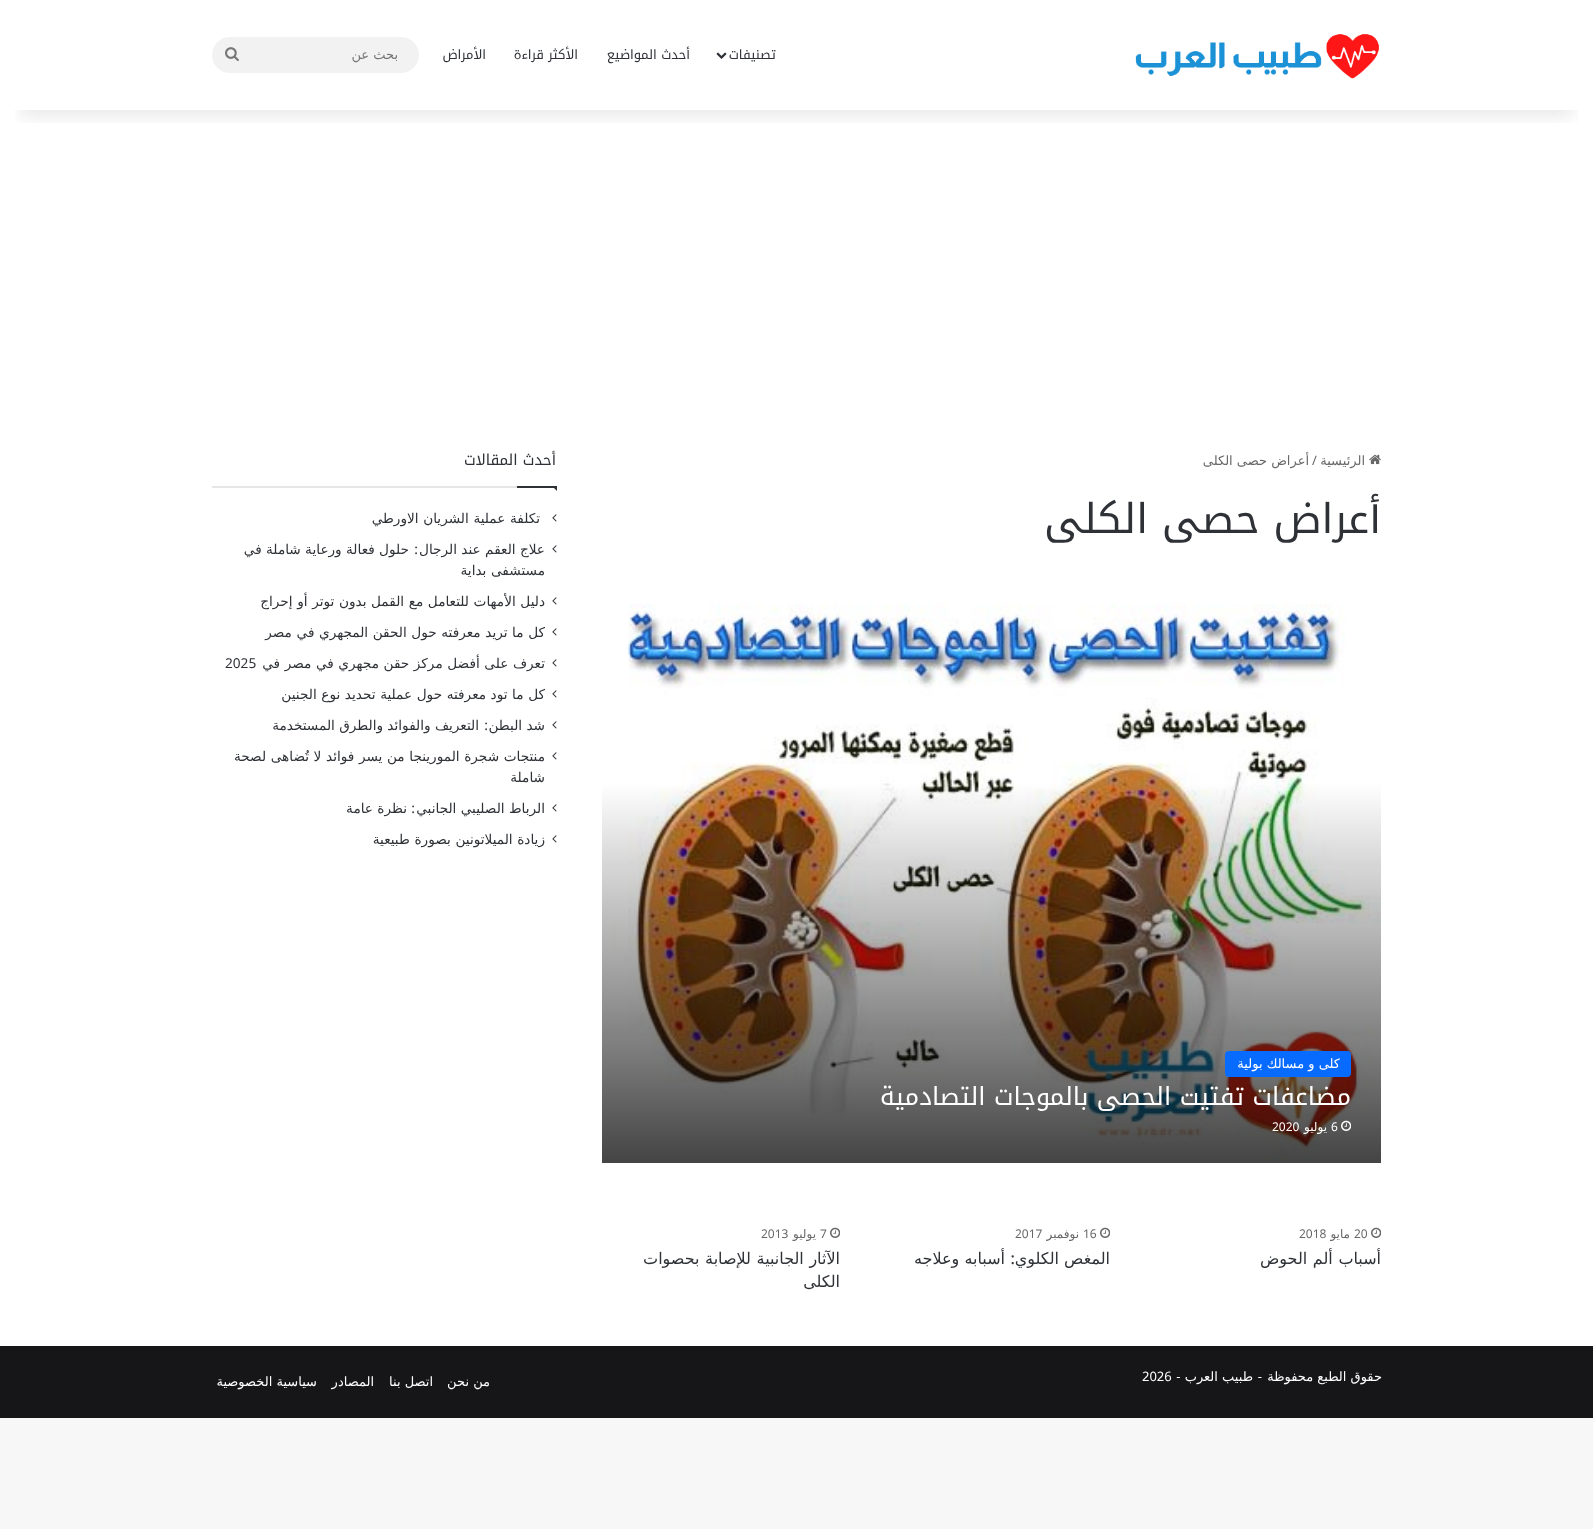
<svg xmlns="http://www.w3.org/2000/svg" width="1593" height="1529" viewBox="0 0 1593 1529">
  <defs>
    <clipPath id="clip1"><path d="M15 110h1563v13H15z"/></clipPath>
  </defs>
  <rect width="100%" height="100%" fill="#f7f7f7"/>
  <path d="M0 0h1593v1346H0z" fill="#fff"/>
  <g clip-path="url(#clip1)">
    <path d="M20 45h1553v70H20z" fill="#0000001a" filter="blur(10px)"/>
  </g>
  <image x="1135" y="34" width="244" height="45" href="img/1.png"/>
  <image x="716" y="52" width="11" height="7" href="img/2.png"/>
  <rect x="212" y="37" width="207" height="36" rx="18" fill="#f2f2f2"/>
  <image x="225" y="47" width="14" height="14" href="img/3.png"/>
  <image x="1369" y="454" width="12" height="11" href="img/4.png"/>
  <image x="602" y="578" width="779" height="585" href="img/5.png"/>
  <rect x="1225" y="1051" width="126" height="26" rx="4" fill="#086bff"/>
  <image x="1341" y="1120" width="10" height="11" href="img/6.png"/>
  <image x="1371" y="1227" width="10" height="11" href="img/7.png"/>
  <image x="1100" y="1227" width="10" height="11" href="img/7.png"/>
  <image x="830" y="1227" width="10" height="11" href="img/7.png"/>
  <path d="M212 486h305v2H212z" fill="#e6e6e6"/>
  <path d="M552 486H557V491Z" fill="#2e3136"/>
  <path d="M517 486h40v2H517z" fill="#2e3136"/>
  <image x="552" y="514" width="5" height="8" href="img/8.png"/>
  <image x="552" y="545" width="5" height="8" href="img/8.png"/>
  <image x="552" y="597" width="5" height="8" href="img/8.png"/>
  <image x="552" y="628" width="5" height="8" href="img/8.png"/>
  <image x="552" y="659" width="5" height="8" href="img/8.png"/>
  <image x="552" y="690" width="5" height="8" href="img/8.png"/>
  <image x="552" y="721" width="5" height="8" href="img/8.png"/>
  <image x="552" y="752" width="5" height="8" href="img/8.png"/>
  <image x="552" y="804" width="5" height="8" href="img/8.png"/>
  <image x="552" y="835" width="5" height="8" href="img/8.png"/>
  <path d="M0 1346h1593v72H0z" fill="#161619"/>
  <g font-family="'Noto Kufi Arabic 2'" font-size="13" direction="rtl" fill="#2e3136">
    <text x="776" y="59">تصنيفات</text>
    <text x="690" y="59">أحدث المواضيع</text>
    <text x="578" y="59">الأكثر قراءة</text>
    <text x="486" y="59">الأمراض</text>
  </g>
  <text x="398" y="59" font-family="DejaVu Sans" font-size="13" direction="rtl" fill="#757575">بحث عن</text>
  <text x="1365" y="465" font-family="DejaVu Sans" font-size="13" direction="rtl" fill="#686868">الرئيسية</text>
  <text x="1312" y="465" font-family="Noto Kufi Arabic" font-size="13" fill="#686868">/</text>
  <text x="1309" y="465" font-family="DejaVu Sans" font-size="13" direction="rtl" fill="#686868">أعراض حصى الكلى</text>
  <text x="1381" y="533" font-family="'Noto Kufi Arabic 2'" font-size="41" direction="rtl" fill="#2e3136">أعراض حصى الكلى</text>
  <text x="1340" y="1068" font-family="DejaVu Sans" font-size="13" direction="rtl" fill="#fff">كلى و مسالك بولية</text>
  <text x="1351" y="1105" font-family="'Noto Kufi Arabic 2'" font-size="25" direction="rtl" fill="#fff">مضاعفات تفتيت الحصى بالموجات التصادمية</text>
  <text x="1331" y="1131" font-family="Noto Kufi Arabic" font-size="12" fill="#fff">6</text>
  <text x="1327" y="1131" font-family="DejaVu Sans" font-size="12" direction="rtl" fill="#fff">يوليو</text>
  <text x="1272" y="1131" font-family="Noto Kufi Arabic" font-size="12" fill="#fff">2020</text>
  <text x="1354" y="1238" font-family="Noto Kufi Arabic" font-size="12" fill="#686868">20</text>
  <text x="1350" y="1238" font-family="DejaVu Sans" font-size="12" direction="rtl" fill="#686868">مايو</text>
  <text x="1299" y="1238" font-family="Noto Kufi Arabic" font-size="12" fill="#686868">2018</text>
  <text x="1381" y="1264" word-spacing="0.5" font-family="DejaVu Sans" font-size="16" direction="rtl" fill="#2e3136">أسباب ألم الحوض</text>
  <text x="1083" y="1238" font-family="Noto Kufi Arabic" font-size="12" fill="#686868">16</text>
  <text x="1079" y="1238" font-family="DejaVu Sans" font-size="12" direction="rtl" fill="#686868">نوفمبر</text>
  <text x="1015" y="1238" font-family="Noto Kufi Arabic" font-size="12" fill="#686868">2017</text>
  <text x="1110" y="1264" font-family="DejaVu Sans" font-size="16" direction="rtl" fill="#2e3136">المغص الكلوي</text>
  <text x="1015" y="1264" font-family="Noto Kufi Arabic" font-size="16" font-weight="500" direction="rtl" fill="#2e3136">:</text>
  <text x="1005" y="1264" font-family="DejaVu Sans" font-size="16" direction="rtl" fill="#2e3136">أسبابه وعلاجه</text>
  <text x="820" y="1238" font-family="Noto Kufi Arabic" font-size="12" fill="#686868">7</text>
  <text x="816" y="1238" font-family="DejaVu Sans" font-size="12" direction="rtl" fill="#686868">يوليو</text>
  <text x="761" y="1238" font-family="Noto Kufi Arabic" font-size="12" fill="#686868">2013</text>
  <g font-family="DejaVu Sans" font-size="16" direction="rtl" fill="#2e3136">
    <text x="840" y="1264" word-spacing="0.5">الآثار الجانبية للإصابة بحصوات</text>
    <text x="840" y="1287">الكلى</text>
  </g>
  <text x="556" y="465" font-family="'Noto Kufi Arabic 2'" font-size="15" direction="rtl" fill="#2e3136">أحدث المقالات</text>
  <g font-family="DejaVu Sans" font-size="13.65" direction="rtl" fill="#2e3136">
    <text x="540" y="523" word-spacing="0.25">تكلفة عملية الشريان الاورطي</text>
    <text x="545" y="554">علاج العقم عند الرجال</text>
  </g>
  <text x="418" y="554" font-family="Noto Kufi Arabic" font-size="13.65" direction="rtl" fill="#2e3136">:</text>
  <g font-family="DejaVu Sans" font-size="13.65" direction="rtl" fill="#2e3136">
    <text x="409" y="554">حلول فعالة ورعاية شاملة في</text>
    <text x="545" y="575" word-spacing="0.25">مستشفى بداية</text>
    <text x="545" y="606" word-spacing="0.25">دليل الأمهات للتعامل مع القمل بدون توتر أو إحراج</text>
    <text x="545" y="637" word-spacing="0.25">كل ما تريد معرفته حول الحقن المجهري في مصر</text>
    <text x="545" y="668" word-spacing="0.25">تعرف على أفضل مركز حقن مجهري في مصر في</text>
  </g>
  <text x="225" y="668" font-family="Noto Kufi Arabic" font-size="13.65" fill="#2e3136">2025</text>
  <g font-family="DejaVu Sans" font-size="13.65" direction="rtl" fill="#2e3136">
    <text x="545" y="699" word-spacing="0.25">كل ما تود معرفته حول عملية تحديد نوع الجنين</text>
    <text x="545" y="730">شد البطن</text>
  </g>
  <text x="488" y="730" font-family="Noto Kufi Arabic" font-size="13.65" direction="rtl" fill="#2e3136">:</text>
  <g font-family="DejaVu Sans" font-size="13.65" direction="rtl" fill="#2e3136">
    <text x="479" y="730">التعريف والفوائد والطرق المستخدمة</text>
    <text x="545" y="761" word-spacing="0.25">منتجات شجرة المورينجا من يسر فوائد لا تُضاهى لصحة</text>
    <text x="545" y="782">شاملة</text>
    <text x="545" y="813">الرباط الصليبي الجانبي</text>
  </g>
  <text x="415" y="813" font-family="Noto Kufi Arabic" font-size="13.65" direction="rtl" fill="#2e3136">:</text>
  <g font-family="DejaVu Sans" font-size="13.65" direction="rtl" fill="#2e3136">
    <text x="407" y="813">نظرة عامة</text>
    <text x="545" y="844" word-spacing="0.25">زيادة الميلاتونين بصورة طبيعية</text>
  </g>
  <text x="1382" y="1381" font-family="DejaVu Sans" font-size="13" direction="rtl" fill="#fff">حقوق الطبع محفوظة</text>
  <text x="1262" y="1381" font-family="Noto Kufi Arabic" font-size="13" direction="rtl" fill="#fff">-</text>
  <text x="1253" y="1381" font-family="DejaVu Sans" font-size="13" direction="rtl" fill="#fff">طبيب العرب</text>
  <text x="1142" y="1381" font-family="Noto Kufi Arabic" font-size="13" fill="#fff">2026 -</text>
  <g font-family="DejaVu Sans" font-size="13" direction="rtl" fill="#fff">
    <text x="490" y="1386">من نحن</text>
    <text x="433" y="1386">اتصل بنا</text>
    <text x="374" y="1386">المصادر</text>
    <text x="317" y="1386">سياسية الخصوصية</text>
  </g>
</svg>
